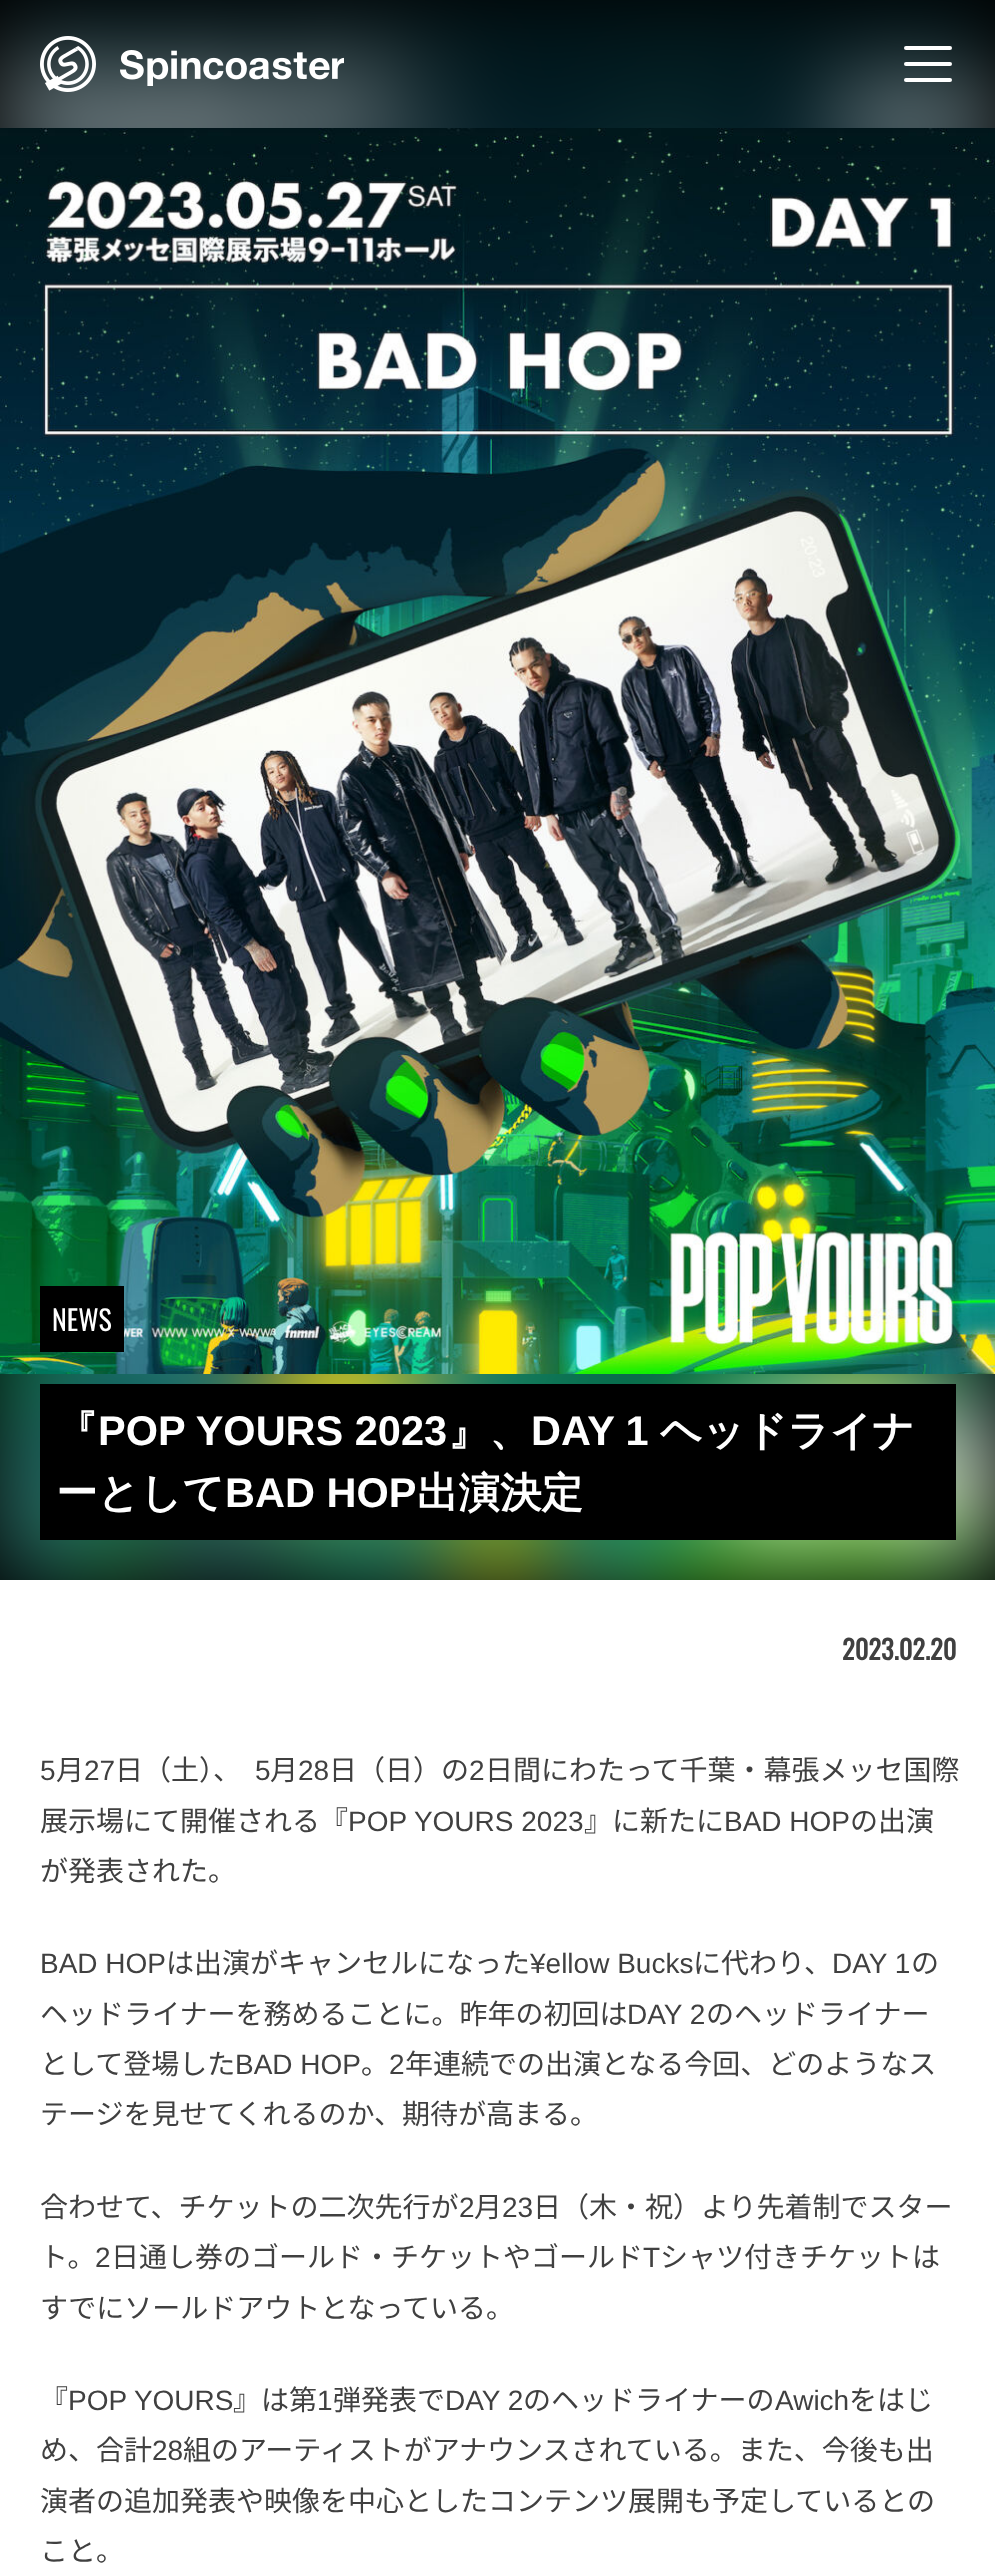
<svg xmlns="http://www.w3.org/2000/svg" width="995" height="2567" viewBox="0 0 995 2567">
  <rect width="100%" height="100%" fill="#fff"/>
  <path d="M0 0h995v1580H0z" fill="#000"/>
  <image x="0" y="0" width="995" height="1580" href="img/3.png"/>
  <image x="40" y="36" width="56" height="56" href="img/1.png"/>
  <image x="120" y="50" width="224" height="36" href="img/2.png"/>
  <rect x="904" y="62" width="48" height="4" rx="2" fill="#fff"/>
  <rect x="904" y="46" width="48" height="4" rx="2" fill="#fff"/>
  <rect x="904" y="78" width="48" height="4" rx="2" fill="#fff"/>
  <image x="0" y="128" width="995" height="1246" href="img/4.png"/>
  <path d="M40 1286h84v66H40z" fill="#000"/>
  <path d="M40 1384h916v156H40z" fill="#000"/>
  <text x="52" y="1331" font-family="Oswald" font-size="28" fill="#fff">NEWS</text>
  <text x="56" y="1445" font-family="WenQuanYi Zen Hei" font-size="41.5" font-weight="bold" fill="#fff">『</text>
  <text x="98" y="1445" font-family="Liberation Sans" font-size="41.5" font-weight="bold" fill="#fff">POP YOURS 2023</text>
  <text x="448" y="1445" font-family="WenQuanYi Zen Hei" font-size="41.5" font-weight="bold" fill="#fff">』、</text>
  <text x="531" y="1445" font-family="Liberation Sans" font-size="41.5" font-weight="bold" fill="#fff">DAY 1</text>
  <g font-family="WenQuanYi Zen Hei" font-size="41.5" font-weight="bold" fill="#fff">
    <text x="660" y="1445">ヘッドライナ</text>
    <text x="56" y="1507">ーとして</text>
  </g>
  <text x="225" y="1507" font-family="Liberation Sans" font-size="41.5" font-weight="bold" fill="#fff">BAD HOP</text>
  <text x="417" y="1507" font-family="WenQuanYi Zen Hei" font-size="41.5" font-weight="bold" fill="#fff">出演決定</text>
  <text x="842" y="1660" font-family="Oswald" font-size="26.5" font-weight="bold" fill="#404040">2023.02.20</text>
  <text x="40" y="1780" font-family="Liberation Sans" font-size="28" fill="#404040">5</text>
  <text x="56" y="1780" font-family="Noto Sans JP" font-size="28" fill="#404040">月</text>
  <text x="84" y="1780" font-family="Liberation Sans" font-size="28" fill="#404040">27</text>
  <text x="115" y="1780" font-family="Noto Sans JP" font-size="28" fill="#404040">日（土）、</text>
  <text x="255" y="1780" font-family="Liberation Sans" font-size="28" fill="#404040">5</text>
  <text x="270" y="1780" font-family="Noto Sans JP" font-size="28" fill="#404040">月</text>
  <text x="298" y="1780" font-family="Liberation Sans" font-size="28" fill="#404040">28</text>
  <text x="329" y="1780" font-family="Noto Sans JP" font-size="28" fill="#404040">日（日）の</text>
  <text x="469" y="1780" font-family="Liberation Sans" font-size="28" fill="#404040">2</text>
  <g font-family="Noto Sans JP" font-size="28" fill="#404040">
    <text x="485" y="1780">日間にわたって千葉・幕張メッセ国際</text>
    <text x="40" y="1831">展示場にて開催される『</text>
  </g>
  <text x="348" y="1831" font-family="Liberation Sans" font-size="28" fill="#404040">POP YOURS 2023</text>
  <text x="584" y="1831" font-family="Noto Sans JP" font-size="28" fill="#404040">』に新たに</text>
  <text x="724" y="1831" font-family="Liberation Sans" font-size="28" fill="#404040">BAD HOP</text>
  <g font-family="Noto Sans JP" font-size="28" fill="#404040">
    <text x="850" y="1831">の出演</text>
    <text x="40" y="1881">が発表された。</text>
  </g>
  <text x="40" y="1973" font-family="Liberation Sans" font-size="28" fill="#404040">BAD HOP</text>
  <text x="166" y="1973" font-family="Noto Sans JP" font-size="28" fill="#404040">は出演がキャンセルになった</text>
  <text x="530" y="1973" font-family="Liberation Sans" font-size="28" fill="#404040">¥ellow Bucks</text>
  <text x="693" y="1973" font-family="Noto Sans JP" font-size="28" fill="#404040">に代わり、</text>
  <text x="832" y="1973" font-family="Liberation Sans" font-size="28" fill="#404040">DAY 1</text>
  <g font-family="Noto Sans JP" font-size="28" fill="#404040">
    <text x="911" y="1973">の</text>
    <text x="40" y="2024">ヘッドライナーを務めることに。昨年の初回は</text>
  </g>
  <text x="627" y="2024" font-family="Liberation Sans" font-size="28" fill="#404040">DAY 2</text>
  <g font-family="Noto Sans JP" font-size="28" fill="#404040">
    <text x="706" y="2024">のヘッドライナー</text>
    <text x="40" y="2074">として登場した</text>
  </g>
  <text x="235" y="2074" font-family="Liberation Sans" font-size="28" fill="#404040">BAD HOP</text>
  <text x="361" y="2074" font-family="Noto Sans JP" font-size="28" fill="#404040">。</text>
  <text x="389" y="2074" font-family="Liberation Sans" font-size="28" fill="#404040">2</text>
  <g font-family="Noto Sans JP" font-size="28" fill="#404040">
    <text x="405" y="2074">年連続での出演となる今回、どのようなス</text>
    <text x="40" y="2124">テージを見せてくれるのか、期待が高まる。</text>
    <text x="40" y="2217">合わせて、チケットの二次先行が</text>
  </g>
  <text x="459" y="2217" font-family="Liberation Sans" font-size="28" fill="#404040">2</text>
  <text x="474" y="2217" font-family="Noto Sans JP" font-size="28" fill="#404040">月</text>
  <text x="502" y="2217" font-family="Liberation Sans" font-size="28" fill="#404040">23</text>
  <g font-family="Noto Sans JP" font-size="28" fill="#404040">
    <text x="533" y="2217">日（木・祝）より先着制でスター</text>
    <text x="40" y="2267">ト。</text>
  </g>
  <text x="95" y="2267" font-family="Liberation Sans" font-size="28" fill="#404040">2</text>
  <text x="111" y="2267" font-family="Noto Sans JP" font-size="28" fill="#404040">日通し券のゴールド・チケットやゴールド</text>
  <text x="643" y="2267" font-family="Liberation Sans" font-size="28" fill="#404040">T</text>
  <g font-family="Noto Sans JP" font-size="28" fill="#404040">
    <text x="660" y="2267">シャツ付きチケットは</text>
    <text x="40" y="2318">すでにソールドアウトとなっている。</text>
    <text x="40" y="2410">『</text>
  </g>
  <text x="68" y="2410" font-family="Liberation Sans" font-size="28" fill="#404040">POP YOURS</text>
  <text x="233" y="2410" font-family="Noto Sans JP" font-size="28" fill="#404040">』は第</text>
  <text x="317" y="2410" font-family="Liberation Sans" font-size="28" fill="#404040">1</text>
  <text x="333" y="2410" font-family="Noto Sans JP" font-size="28" fill="#404040">弾発表で</text>
  <text x="445" y="2410" font-family="Liberation Sans" font-size="28" fill="#404040">DAY 2</text>
  <text x="523" y="2410" font-family="Noto Sans JP" font-size="28" fill="#404040">のヘッドライナーの</text>
  <text x="775" y="2410" font-family="Liberation Sans" font-size="28" fill="#404040">Awich</text>
  <g font-family="Noto Sans JP" font-size="28" fill="#404040">
    <text x="849" y="2410">をはじ</text>
    <text x="40" y="2460">め、合計</text>
  </g>
  <text x="152" y="2460" font-family="Liberation Sans" font-size="28" fill="#404040">28</text>
  <g font-family="Noto Sans JP" font-size="28" fill="#404040">
    <text x="183" y="2460">組のアーティストがアナウンスされている。また、今後も出</text>
    <text x="40" y="2511">演者の追加発表や映像を中心としたコンテンツ展開も予定しているとの</text>
    <text x="40" y="2561">こと。</text>
  </g>
</svg>
